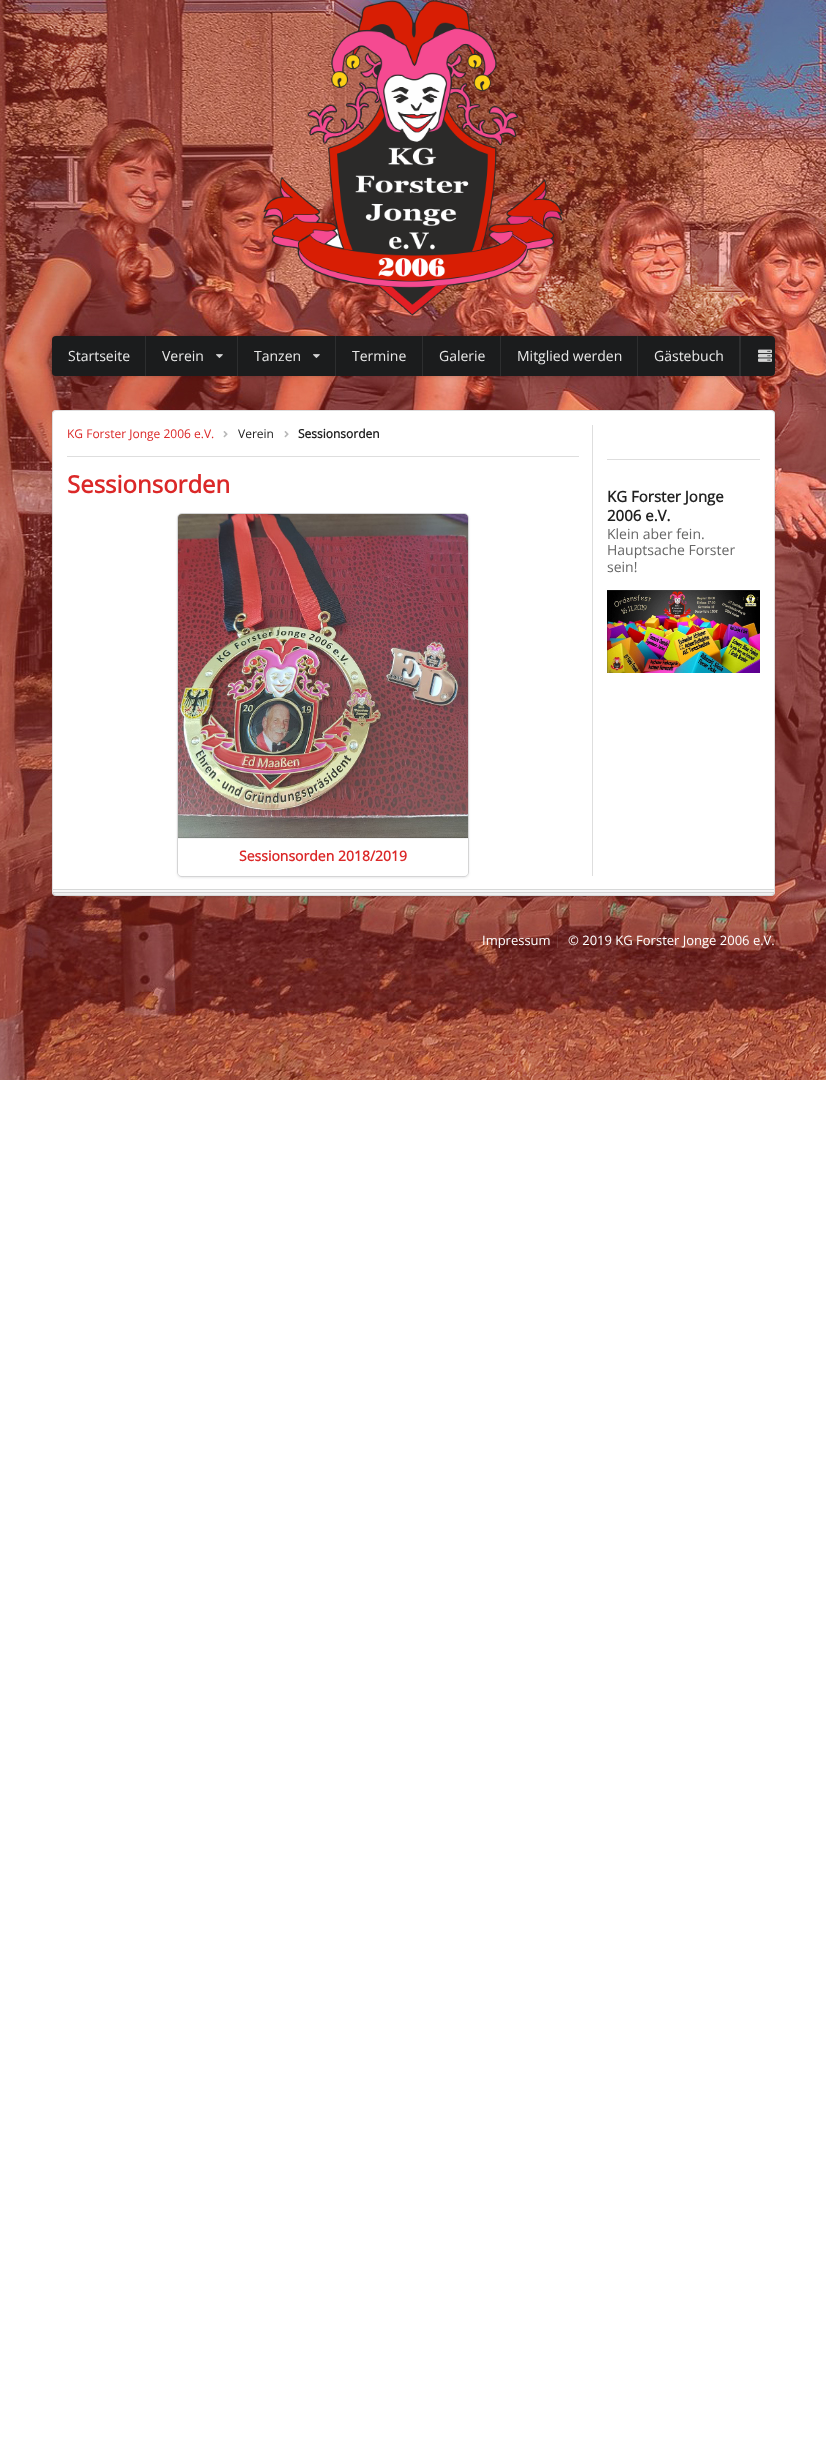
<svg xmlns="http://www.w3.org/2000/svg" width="826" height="2454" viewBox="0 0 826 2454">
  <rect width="100%" height="100%" fill="#fff"/>
  <image x="0" y="0" width="826" height="1080" href="img/1.png"/>
  <image x="263" y="0" width="300" height="316" href="img/2.png"/>
  <path d="M52 336h723v40H52z" fill="#00000033" filter="blur(2px)"/>
  <rect x="52" y="336" width="723" height="40" rx="4" fill="#1b1c1d"/>
  <path d="M145 336h1v40H145z" fill="#2d2e2f"/>
  <image x="216" y="354" width="7" height="4" href="img/3.png"/>
  <path d="M237 336h1v40H237z" fill="#2d2e2f"/>
  <image x="313" y="354" width="7" height="4" href="img/3.png"/>
  <path d="M335 336h1v40H335z" fill="#2d2e2f"/>
  <path d="M422 336h1v40H422z" fill="#2d2e2f"/>
  <path d="M500 336h1v40H500z" fill="#2d2e2f"/>
  <path d="M637 336h1v40H637z" fill="#2d2e2f"/>
  <path d="M739 336h2v40H739z" fill="#2d2e2f"/>
  <image x="758" y="349" width="14" height="13" href="img/4.png"/>
  <rect x="52" y="411" width="723" height="486" rx="4" fill="#22242626" filter="blur(1px)"/>
  <rect x="52" y="410" width="723" height="486" rx="4" fill="#fff"/>
  <rect x="52.5" y="410.5" width="722" height="485" rx="3.5" fill="none" stroke="#22242626"/>
  <image x="223" y="431" width="5" height="7" href="img/5.png"/>
  <image x="284" y="431" width="5" height="7" href="img/5.png"/>
  <path d="M67 456h512v1H67z" fill="#dedede"/>
  <rect x="177.5" y="513.5" width="291" height="363" rx="4.5" fill="none" stroke="#d4d4d5"/>
  <rect x="178" y="515" width="290" height="362" rx="4" fill="#d4d4d5" filter="blur(1.5px)"/>
  <rect x="178" y="514" width="290" height="362" rx="4" fill="#fff"/>
  <image x="178" y="514" width="290" height="324" href="img/6.png"/>
  <path d="M178 838h290v1H178z" fill="#f2f2f2"/>
  <path d="M592 425h1v451H592z" fill="#dedede"/>
  <path d="M607 459h153v1H607z" fill="#dedede"/>
  <image x="607" y="590" width="153" height="83" href="img/7.png"/>
  <path d="M53 890h721v5H53z" fill="#00000008"/>
  <path d="M53 889h721v1H53z" fill="#d7d8d8"/>
  <path d="M53 892h721v6H53z" fill="#00000008"/>
  <path d="M53 892h721v1H53z" fill="#22242626"/>
  <path d="M557 935h1v13H557z" fill="#ffffff1a"/>
  <g font-family="Open Sans" font-size="14" fill="#e8e8e8">
    <text x="68" y="361">Startseite</text>
    <text x="162" y="361">Verein</text>
    <text x="254" y="361">Tanzen</text>
    <text x="352" y="361">Termine</text>
    <text x="439" y="361">Galerie</text>
    <text x="517" y="361">Mitglied werden</text>
    <text x="654" y="361">Gästebuch</text>
  </g>
  <text x="67" y="438" font-family="Open Sans" font-size="12" fill="#db2828">KG Forster Jonge 2006 e.V.</text>
  <text x="238" y="438" font-family="Open Sans" font-size="12" fill="#212121">Verein</text>
  <text x="298" y="438" font-family="Open Sans" font-size="12" font-weight="bold" fill="#212121">Sessionsorden</text>
  <text x="67" y="493" font-family="Open Sans" font-size="24" font-weight="bold" fill="#db2828">Sessionsorden</text>
  <text x="239" y="861" font-family="Open Sans" font-size="14" font-weight="bold" fill="#db2828">Sessionsorden 2018/2019</text>
  <g font-family="Open Sans" font-size="15" font-weight="bold" fill="#212121">
    <text x="607" y="502">KG Forster Jonge</text>
    <text x="607" y="521">2006 e.V.</text>
  </g>
  <g font-family="Open Sans" font-size="14" fill="#666">
    <text x="607" y="539">Klein aber fein.</text>
    <text x="607" y="555">Hauptsache Forster</text>
    <text x="607" y="572">sein!</text>
  </g>
  <g font-family="Open Sans" font-size="13" fill="#fff">
    <text x="482" y="945">Impressum</text>
    <text x="568" y="945">© 2019 KG Forster Jonge 2006 e.V.</text>
  </g>
</svg>
